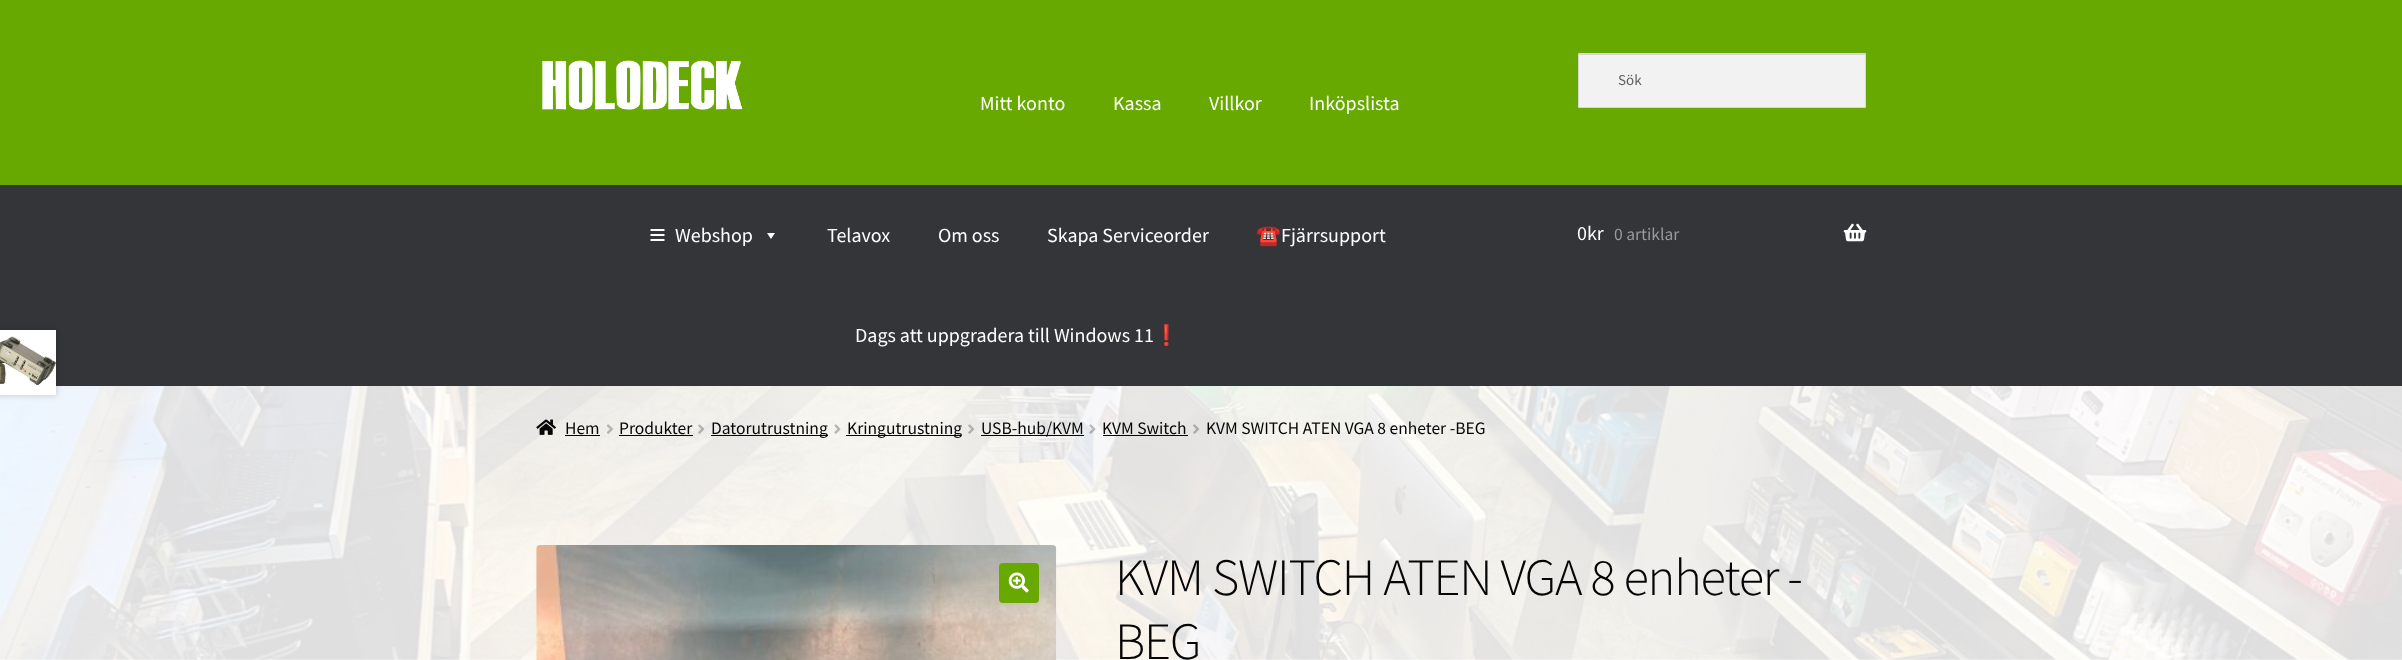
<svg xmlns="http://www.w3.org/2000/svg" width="2402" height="660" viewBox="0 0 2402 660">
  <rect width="100%" height="100%" fill="#fff"/>
  <image x="0" y="386" width="2402" height="274" href="img/1.png"/>
  <path d="M0 0h2402v185H0z" fill="#67a801"/>
  <path d="M56 385h2346v1H56z" fill="#343538"/>
  <image x="542" y="60" width="201" height="50" href="img/2.png"/>
  <path d="M1579 55h286v52H1579z" fill="#f2f2f2"/>
  <path d="M1579 54h286v1H1579z" fill="#d4d4d4"/>
  <path d="M1578.5 53.5h287v54H1578.5z" fill="none" stroke="#d8d8d8"/>
  <path d="M0 185h2402v200H0z" fill="#343538"/>
  <image x="650" y="229" width="15" height="12" href="img/3.png"/>
  <path d="M775 233L771 239L767 233Z" fill="#fff"/>
  <image x="1843" y="223" width="24" height="19" href="img/4.png"/>
  <image x="536" y="419" width="20" height="16" href="img/5.png"/>
  <path d="M565 435h35v1H565z" fill="#050505"/>
  <image x="607" y="424" width="6" height="10" href="img/6.png"/>
  <path d="M619 435h74v1H619z" fill="#050505"/>
  <image x="698" y="424" width="7" height="10" href="img/7.png"/>
  <path d="M711 435h117v1H711z" fill="#050505"/>
  <image x="834" y="424" width="7" height="10" href="img/8.png"/>
  <path d="M846 435h115v1H846z" fill="#050505"/>
  <image x="968" y="424" width="7" height="10" href="img/9.png"/>
  <path d="M981 435h103v1H981z" fill="#050505"/>
  <image x="1089" y="424" width="7" height="10" href="img/10.png"/>
  <path d="M1103 435h85v1H1103z" fill="#050505"/>
  <image x="1193" y="424" width="7" height="10" href="img/11.png"/>
  <path d="M-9 330h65v65H-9z" fill="#00000033" filter="blur(3px)"/>
  <path d="M0 330h56v65H0z" fill="#fff"/>
  <image x="0" y="336" width="56" height="50" href="img/12.png"/>
  <image x="536" y="545" width="521" height="115" href="img/13.png"/>
  <rect x="999" y="563" width="40" height="40" rx="4" fill="#67a801"/>
  <image x="1008" y="572" width="21" height="21" href="img/14.png"/>
  <text x="1618" y="85" font-family="Source Sans Pro" font-size="15" fill="#616161">Sök</text>
  <g font-family="Source Sans Pro" font-size="20" fill="#fff">
    <text x="980" y="110">Mitt konto</text>
    <text x="1113" y="110">Kassa</text>
    <text x="1209" y="110">Villkor</text>
    <text x="1309" y="110">Inköpslista</text>
    <text x="675" y="242">Webshop</text>
    <text x="827" y="242">Telavox</text>
    <text x="938" y="242">Om oss</text>
    <text x="1047" y="242">Skapa Serviceorder</text>
  </g>
  <text x="1256" y="242" font-family="Noto Color Emoji" font-size="20" fill="#fff">☎️</text>
  <g font-family="Source Sans Pro" font-size="20" fill="#fff">
    <text x="1281" y="242">Fjärrsupport</text>
    <text x="855" y="342">Dags att uppgradera till Windows 11</text>
  </g>
  <text x="1154" y="342" font-family="Noto Color Emoji" font-size="20" fill="#fff">❗️</text>
  <text x="1577" y="240" font-family="Source Sans Pro" font-size="20" fill="#fff">0kr</text>
  <text x="1614" y="240" font-family="Source Sans Pro" font-size="17.5" fill="#9a9a9c">0 artiklar</text>
  <g font-family="Source Sans Pro" font-size="17.5" fill="#050505">
    <text x="565" y="434">Hem</text>
    <text x="619" y="434">Produkter</text>
    <text x="711" y="434">Datorutrustning</text>
    <text x="847" y="434">Kringutrustning</text>
    <text x="981" y="434">USB-hub/KVM</text>
    <text x="1102" y="434">KVM Switch</text>
    <text x="1206" y="434">KVM SWITCH ATEN VGA 8 enheter -BEG</text>
  </g>
  <g font-family="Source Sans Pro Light" font-size="52.4" font-weight="300" letter-spacing="-1.25" fill="#050505">
    <text x="1115" y="595">KVM SWITCH ATEN VGA 8 enheter -</text>
    <text x="1115" y="659">BEG</text>
  </g>
</svg>
